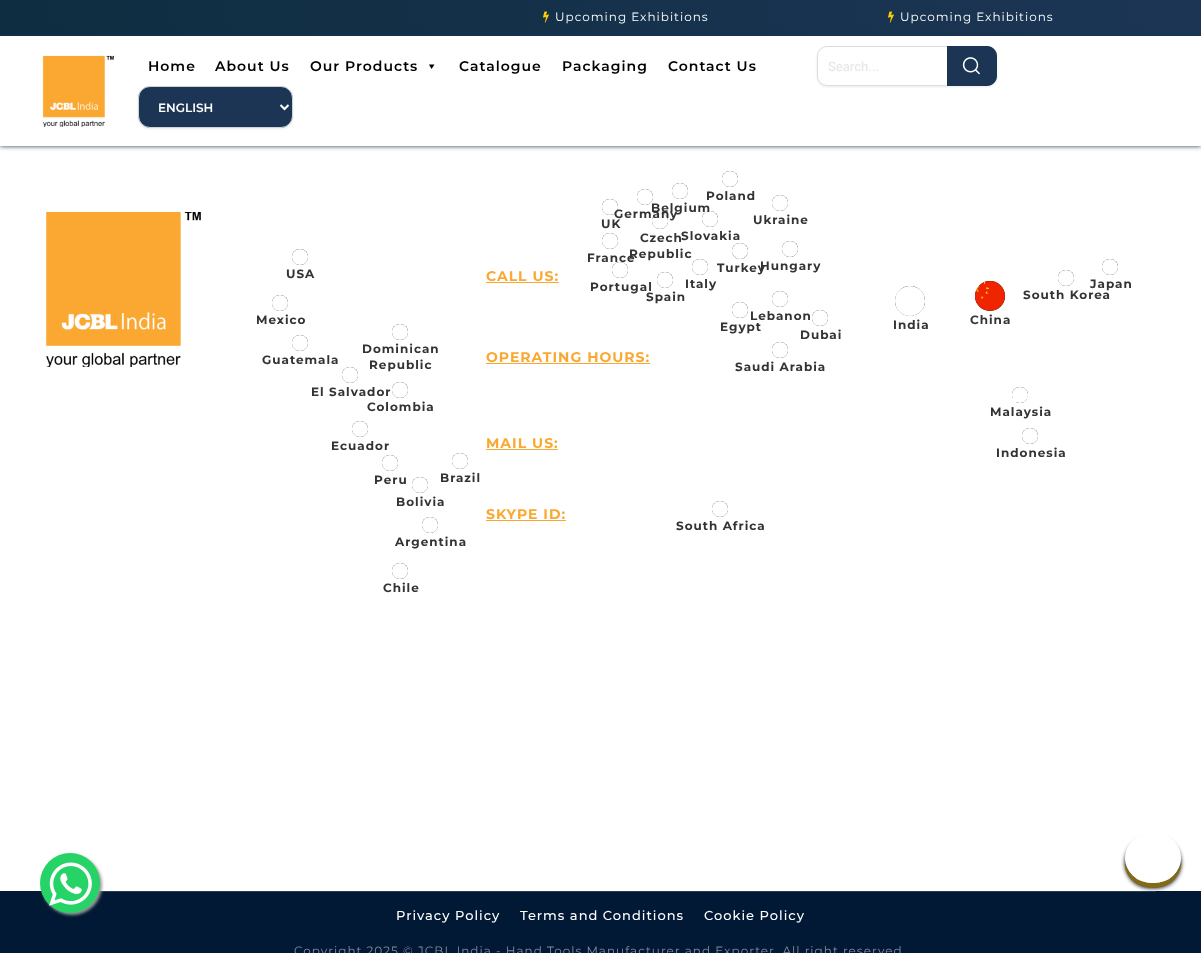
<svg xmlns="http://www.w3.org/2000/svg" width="1201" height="953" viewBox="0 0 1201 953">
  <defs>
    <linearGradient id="g1" gradientUnits="userSpaceOnUse" x1="0" y1="72" x2="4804" y2="72"><stop offset="0" stop-color="#0e2d40"/><stop offset="0.51" stop-color="#2b3e6c"/><stop offset="1" stop-color="#3f6e85"/></linearGradient>
    <clipPath id="clip1"><path d="M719 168H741V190H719ZM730 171C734.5 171 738 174.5 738 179C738 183.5 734.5 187 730 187C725.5 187 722 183.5 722 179C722 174.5 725.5 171 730 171Z" clip-rule="evenodd"/></clipPath>
    <clipPath id="clip2"><path d="M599 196H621V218H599ZM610 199C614.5 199 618 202.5 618 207C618 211.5 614.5 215 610 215C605.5 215 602 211.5 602 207C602 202.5 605.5 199 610 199Z" clip-rule="evenodd"/></clipPath>
    <clipPath id="clip3"><path d="M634 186H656V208H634ZM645 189C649.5 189 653 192.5 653 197C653 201.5 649.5 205 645 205C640.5 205 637 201.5 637 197C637 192.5 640.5 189 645 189Z" clip-rule="evenodd"/></clipPath>
    <clipPath id="clip4"><path d="M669 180H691V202H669ZM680 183C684.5 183 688 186.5 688 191C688 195.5 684.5 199 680 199C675.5 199 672 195.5 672 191C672 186.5 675.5 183 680 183Z" clip-rule="evenodd"/></clipPath>
    <clipPath id="clip5"><path d="M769 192H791V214H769ZM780 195C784.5 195 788 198.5 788 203C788 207.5 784.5 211 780 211C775.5 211 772 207.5 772 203C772 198.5 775.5 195 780 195Z" clip-rule="evenodd"/></clipPath>
    <clipPath id="clip6"><path d="M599 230H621V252H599ZM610 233C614.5 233 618 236.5 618 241C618 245.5 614.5 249 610 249C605.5 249 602 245.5 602 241C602 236.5 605.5 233 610 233Z" clip-rule="evenodd"/></clipPath>
    <clipPath id="clip7"><path d="M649 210H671V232H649ZM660 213C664.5 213 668 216.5 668 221C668 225.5 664.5 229 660 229C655.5 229 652 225.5 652 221C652 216.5 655.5 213 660 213Z" clip-rule="evenodd"/></clipPath>
    <clipPath id="clip8"><path d="M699 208H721V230H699ZM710 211C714.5 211 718 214.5 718 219C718 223.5 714.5 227 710 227C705.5 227 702 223.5 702 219C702 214.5 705.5 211 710 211Z" clip-rule="evenodd"/></clipPath>
    <clipPath id="clip9"><path d="M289 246H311V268H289ZM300 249C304.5 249 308 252.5 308 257C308 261.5 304.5 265 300 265C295.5 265 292 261.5 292 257C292 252.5 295.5 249 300 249Z" clip-rule="evenodd"/></clipPath>
    <clipPath id="clip10"><path d="M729 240H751V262H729ZM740 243C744.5 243 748 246.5 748 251C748 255.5 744.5 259 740 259C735.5 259 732 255.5 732 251C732 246.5 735.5 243 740 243Z" clip-rule="evenodd"/></clipPath>
    <clipPath id="clip11"><path d="M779 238H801V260H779ZM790 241C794.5 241 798 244.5 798 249C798 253.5 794.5 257 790 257C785.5 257 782 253.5 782 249C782 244.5 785.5 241 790 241Z" clip-rule="evenodd"/></clipPath>
    <clipPath id="clip12"><path d="M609 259H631V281H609ZM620 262C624.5 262 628 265.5 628 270C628 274.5 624.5 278 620 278C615.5 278 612 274.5 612 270C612 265.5 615.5 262 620 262Z" clip-rule="evenodd"/></clipPath>
    <clipPath id="clip13"><path d="M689 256H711V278H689ZM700 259C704.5 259 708 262.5 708 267C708 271.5 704.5 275 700 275C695.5 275 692 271.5 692 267C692 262.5 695.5 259 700 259Z" clip-rule="evenodd"/></clipPath>
    <clipPath id="clip14"><path d="M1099 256H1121V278H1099ZM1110 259C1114.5 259 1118 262.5 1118 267C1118 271.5 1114.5 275 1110 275C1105.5 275 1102 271.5 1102 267C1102 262.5 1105.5 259 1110 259Z" clip-rule="evenodd"/></clipPath>
    <clipPath id="clip15"><path d="M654 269H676V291H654ZM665 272C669.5 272 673 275.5 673 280C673 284.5 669.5 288 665 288C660.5 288 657 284.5 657 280C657 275.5 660.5 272 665 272Z" clip-rule="evenodd"/></clipPath>
    <clipPath id="clip16"><path d="M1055 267H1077V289H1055ZM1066 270C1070.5 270 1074 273.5 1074 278C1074 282.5 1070.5 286 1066 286C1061.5 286 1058 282.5 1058 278C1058 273.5 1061.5 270 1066 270Z" clip-rule="evenodd"/></clipPath>
    <clipPath id="clip17"><path d="M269 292H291V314H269ZM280 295C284.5 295 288 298.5 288 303C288 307.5 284.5 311 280 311C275.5 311 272 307.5 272 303C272 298.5 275.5 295 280 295Z" clip-rule="evenodd"/></clipPath>
    <clipPath id="clip18"><path d="M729 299H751V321H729ZM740 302C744.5 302 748 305.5 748 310C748 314.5 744.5 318 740 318C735.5 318 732 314.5 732 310C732 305.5 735.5 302 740 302Z" clip-rule="evenodd"/></clipPath>
    <clipPath id="clip19"><path d="M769 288H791V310H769ZM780 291C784.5 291 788 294.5 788 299C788 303.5 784.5 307 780 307C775.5 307 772 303.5 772 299C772 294.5 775.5 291 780 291Z" clip-rule="evenodd"/></clipPath>
    <clipPath id="clip20"><path d="M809 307H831V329H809ZM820 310C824.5 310 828 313.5 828 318C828 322.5 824.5 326 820 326C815.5 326 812 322.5 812 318C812 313.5 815.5 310 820 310Z" clip-rule="evenodd"/></clipPath>
    <clipPath id="clip21"><path d="M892 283H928V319H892ZM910 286C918.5 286 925 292.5 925 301C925 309.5 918.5 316 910 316C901.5 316 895 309.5 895 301C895 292.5 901.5 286 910 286Z" clip-rule="evenodd"/></clipPath>
    <clipPath id="clip22"><path d="M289 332H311V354H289ZM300 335C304.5 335 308 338.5 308 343C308 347.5 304.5 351 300 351C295.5 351 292 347.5 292 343C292 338.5 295.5 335 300 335Z" clip-rule="evenodd"/></clipPath>
    <clipPath id="clip23"><path d="M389 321H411V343H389ZM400 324C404.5 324 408 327.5 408 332C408 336.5 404.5 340 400 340C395.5 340 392 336.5 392 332C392 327.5 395.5 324 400 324Z" clip-rule="evenodd"/></clipPath>
    <clipPath id="clip24"><path d="M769 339H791V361H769ZM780 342C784.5 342 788 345.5 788 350C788 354.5 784.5 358 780 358C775.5 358 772 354.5 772 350C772 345.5 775.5 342 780 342Z" clip-rule="evenodd"/></clipPath>
    <clipPath id="clip25"><path d="M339 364H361V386H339ZM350 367C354.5 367 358 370.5 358 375C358 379.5 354.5 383 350 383C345.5 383 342 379.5 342 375C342 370.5 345.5 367 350 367Z" clip-rule="evenodd"/></clipPath>
    <clipPath id="clip26"><path d="M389 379H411V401H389ZM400 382C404.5 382 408 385.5 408 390C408 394.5 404.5 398 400 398C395.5 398 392 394.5 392 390C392 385.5 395.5 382 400 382Z" clip-rule="evenodd"/></clipPath>
    <clipPath id="clip27"><path d="M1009 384H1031V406H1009ZM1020 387C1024.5 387 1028 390.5 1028 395C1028 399.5 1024.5 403 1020 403C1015.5 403 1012 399.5 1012 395C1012 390.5 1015.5 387 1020 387Z" clip-rule="evenodd"/></clipPath>
    <clipPath id="clip28"><path d="M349 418H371V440H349ZM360 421C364.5 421 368 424.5 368 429C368 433.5 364.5 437 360 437C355.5 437 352 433.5 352 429C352 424.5 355.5 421 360 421Z" clip-rule="evenodd"/></clipPath>
    <clipPath id="clip29"><path d="M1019 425H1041V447H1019ZM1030 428C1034.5 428 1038 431.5 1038 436C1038 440.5 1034.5 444 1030 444C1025.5 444 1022 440.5 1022 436C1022 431.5 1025.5 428 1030 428Z" clip-rule="evenodd"/></clipPath>
    <clipPath id="clip30"><path d="M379 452H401V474H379ZM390 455C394.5 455 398 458.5 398 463C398 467.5 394.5 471 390 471C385.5 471 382 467.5 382 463C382 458.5 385.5 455 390 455Z" clip-rule="evenodd"/></clipPath>
    <clipPath id="clip31"><path d="M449 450H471V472H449ZM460 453C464.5 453 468 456.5 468 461C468 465.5 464.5 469 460 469C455.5 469 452 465.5 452 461C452 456.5 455.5 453 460 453Z" clip-rule="evenodd"/></clipPath>
    <clipPath id="clip32"><path d="M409 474H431V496H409ZM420 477C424.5 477 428 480.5 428 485C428 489.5 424.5 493 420 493C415.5 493 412 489.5 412 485C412 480.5 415.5 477 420 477Z" clip-rule="evenodd"/></clipPath>
    <clipPath id="clip33"><path d="M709 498H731V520H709ZM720 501C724.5 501 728 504.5 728 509C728 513.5 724.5 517 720 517C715.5 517 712 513.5 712 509C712 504.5 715.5 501 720 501Z" clip-rule="evenodd"/></clipPath>
    <clipPath id="clip34"><path d="M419 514H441V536H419ZM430 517C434.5 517 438 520.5 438 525C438 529.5 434.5 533 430 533C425.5 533 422 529.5 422 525C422 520.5 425.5 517 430 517Z" clip-rule="evenodd"/></clipPath>
    <clipPath id="clip35"><path d="M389 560H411V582H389ZM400 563C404.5 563 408 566.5 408 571C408 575.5 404.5 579 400 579C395.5 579 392 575.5 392 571C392 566.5 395.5 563 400 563Z" clip-rule="evenodd"/></clipPath>
  </defs>
  <rect width="100%" height="100%" fill="#fff"/>
  <path d="M0 0h1201v36H0z" fill="url(#g1)"/>
  <image x="543" y="11" width="6" height="12" href="img/1.png"/>
  <image x="888" y="11" width="6" height="12" href="img/2.png"/>
  <path d="M0 36h1201v110H0z" fill="#1a3452" filter="blur(2.5px)"/>
  <path d="M0 36h1201v110H0z" fill="#fff"/>
  <image x="42" y="55" width="72" height="72" href="img/3.png"/>
  <path d="M434.5 64.5L431.5 69L429 64.5Z" fill="#000"/>
  <rect x="817" y="47" width="180" height="40" rx="10" fill="#21252917" filter="blur(1px)"/>
  <rect x="817.5" y="46.5" width="179" height="39" rx="9.5" fill="#fff" stroke="#ddd"/>
  <path d="M947 46H987C992.5 46 997 50.5 997 56V76C997 81.5 992.5 86 987 86H947Z" fill="#1c3555"/>
  <image x="962" y="57" width="18" height="18" href="img/4.png"/>
  <rect x="138" y="87" width="155" height="42" rx="12" fill="#21252917" filter="blur(1px)"/>
  <rect x="138.5" y="86.5" width="154" height="41" rx="11.5" fill="#1c3555" stroke="#ced4da"/>
  <path d="M280.5 105L284.5 109L288.5 105" fill="none" stroke="#fff" stroke-width="2"/>
  <g clip-path="url(#clip1)">
    <rect x="722" y="171" width="16" height="16" rx="8" fill="#000" filter="blur(0.5px)"/>
  </g>
  <g clip-path="url(#clip2)">
    <rect x="602" y="199" width="16" height="16" rx="8" fill="#000" filter="blur(0.5px)"/>
  </g>
  <g clip-path="url(#clip3)">
    <rect x="637" y="189" width="16" height="16" rx="8" fill="#000" filter="blur(0.5px)"/>
  </g>
  <g clip-path="url(#clip4)">
    <rect x="672" y="183" width="16" height="16" rx="8" fill="#000" filter="blur(0.5px)"/>
  </g>
  <g clip-path="url(#clip5)">
    <rect x="772" y="195" width="16" height="16" rx="8" fill="#000" filter="blur(0.5px)"/>
  </g>
  <g clip-path="url(#clip6)">
    <rect x="602" y="233" width="16" height="16" rx="8" fill="#000" filter="blur(0.5px)"/>
  </g>
  <g clip-path="url(#clip7)">
    <rect x="652" y="213" width="16" height="16" rx="8" fill="#000" filter="blur(0.5px)"/>
  </g>
  <g clip-path="url(#clip8)">
    <rect x="702" y="211" width="16" height="16" rx="8" fill="#000" filter="blur(0.5px)"/>
  </g>
  <g clip-path="url(#clip9)">
    <rect x="292" y="249" width="16" height="16" rx="8" fill="#000" filter="blur(0.5px)"/>
  </g>
  <g clip-path="url(#clip10)">
    <rect x="732" y="243" width="16" height="16" rx="8" fill="#000" filter="blur(0.5px)"/>
  </g>
  <g clip-path="url(#clip11)">
    <rect x="782" y="241" width="16" height="16" rx="8" fill="#000" filter="blur(0.5px)"/>
  </g>
  <g clip-path="url(#clip12)">
    <rect x="612" y="262" width="16" height="16" rx="8" fill="#000" filter="blur(0.5px)"/>
  </g>
  <g clip-path="url(#clip13)">
    <rect x="692" y="259" width="16" height="16" rx="8" fill="#000" filter="blur(0.5px)"/>
  </g>
  <g clip-path="url(#clip14)">
    <rect x="1102" y="259" width="16" height="16" rx="8" fill="#000" filter="blur(0.5px)"/>
  </g>
  <g clip-path="url(#clip15)">
    <rect x="657" y="272" width="16" height="16" rx="8" fill="#000" filter="blur(0.5px)"/>
  </g>
  <g clip-path="url(#clip16)">
    <rect x="1058" y="270" width="16" height="16" rx="8" fill="#000" filter="blur(0.5px)"/>
  </g>
  <g clip-path="url(#clip17)">
    <rect x="272" y="295" width="16" height="16" rx="8" fill="#000" filter="blur(0.5px)"/>
  </g>
  <g clip-path="url(#clip18)">
    <rect x="732" y="302" width="16" height="16" rx="8" fill="#000" filter="blur(0.5px)"/>
  </g>
  <g clip-path="url(#clip19)">
    <rect x="772" y="291" width="16" height="16" rx="8" fill="#000" filter="blur(0.5px)"/>
  </g>
  <g clip-path="url(#clip20)">
    <rect x="812" y="310" width="16" height="16" rx="8" fill="#000" filter="blur(0.5px)"/>
  </g>
  <g clip-path="url(#clip21)">
    <rect x="895" y="286" width="30" height="30" rx="15" fill="#000" filter="blur(0.5px)"/>
  </g>
  <rect x="975" y="281" width="30" height="30" rx="15" fill="#000" filter="blur(0.5px)"/>
  <image x="975" y="281" width="30" height="30" href="img/5.png"/>
  <g clip-path="url(#clip22)">
    <rect x="292" y="335" width="16" height="16" rx="8" fill="#000" filter="blur(0.5px)"/>
  </g>
  <g clip-path="url(#clip23)">
    <rect x="392" y="324" width="16" height="16" rx="8" fill="#000" filter="blur(0.5px)"/>
  </g>
  <g clip-path="url(#clip24)">
    <rect x="772" y="342" width="16" height="16" rx="8" fill="#000" filter="blur(0.5px)"/>
  </g>
  <g clip-path="url(#clip25)">
    <rect x="342" y="367" width="16" height="16" rx="8" fill="#000" filter="blur(0.5px)"/>
  </g>
  <g clip-path="url(#clip26)">
    <rect x="392" y="382" width="16" height="16" rx="8" fill="#000" filter="blur(0.5px)"/>
  </g>
  <g clip-path="url(#clip27)">
    <rect x="1012" y="387" width="16" height="16" rx="8" fill="#000" filter="blur(0.5px)"/>
  </g>
  <g clip-path="url(#clip28)">
    <rect x="352" y="421" width="16" height="16" rx="8" fill="#000" filter="blur(0.5px)"/>
  </g>
  <g clip-path="url(#clip29)">
    <rect x="1022" y="428" width="16" height="16" rx="8" fill="#000" filter="blur(0.5px)"/>
  </g>
  <g clip-path="url(#clip30)">
    <rect x="382" y="455" width="16" height="16" rx="8" fill="#000" filter="blur(0.5px)"/>
  </g>
  <g clip-path="url(#clip31)">
    <rect x="452" y="453" width="16" height="16" rx="8" fill="#000" filter="blur(0.5px)"/>
  </g>
  <g clip-path="url(#clip32)">
    <rect x="412" y="477" width="16" height="16" rx="8" fill="#000" filter="blur(0.5px)"/>
  </g>
  <g clip-path="url(#clip33)">
    <rect x="712" y="501" width="16" height="16" rx="8" fill="#000" filter="blur(0.5px)"/>
  </g>
  <g clip-path="url(#clip34)">
    <rect x="422" y="517" width="16" height="16" rx="8" fill="#000" filter="blur(0.5px)"/>
  </g>
  <g clip-path="url(#clip35)">
    <rect x="392" y="563" width="16" height="16" rx="8" fill="#000" filter="blur(0.5px)"/>
  </g>
  <path d="M0 891h1201v62H0z" fill="#021936"/>
  <path d="M98 891h1058v1H98z" fill="#283c54"/>
  <rect x="42" y="855" width="60" height="60" rx="30" fill="#999" filter="blur(1.5px)"/>
  <circle cx="70" cy="883" r="30" fill="#25d366"/>
  <image x="49" y="862" width="43" height="44" href="img/6.png"/>
  <image x="46" y="212" width="155" height="155" href="img/7.png"/>
  <path d="M486 282h73v1H486z" fill="#faa831"/>
  <path d="M486 363h164v1H486z" fill="#faa831"/>
  <path d="M486 449h72v1H486z" fill="#faa831"/>
  <path d="M486 520h80v1H486z" fill="#faa831"/>
  <image x="1012" y="397" width="5" height="6" href="img/8.png"/>
  <image x="1020" y="394" width="9" height="10" href="img/9.png"/>
  <rect x="1125" y="838" width="56" height="50" rx="25" fill="#000" filter="blur(2px)"/>
  <path d="M1125 860C1122 888 1161 897 1176 877C1180 872 1182 866 1181 860C1178 890 1128 890 1125 860Z" fill="#836b13"/>
  <ellipse cx="1153" cy="858" rx="28" ry="25" fill="#fff"/>
  <path d="M1153 834C1188.5 834 1188.5 882 1153 882C1117.5 882 1117.5 834 1153 834Z" fill="none" stroke="#fff" stroke-width="2"/>
  <g font-family="Montserrat" font-size="12" letter-spacing="1" fill="#fff">
    <text x="555" y="21">Upcoming Exhibitions</text>
    <text x="900" y="21">Upcoming Exhibitions</text>
  </g>
  <g font-family="Montserrat" font-size="14" font-weight="600" letter-spacing="1" fill="#000">
    <text x="148" y="71">Home</text>
    <text x="215" y="71">About Us</text>
    <text x="310" y="71">Our Products</text>
    <text x="459" y="71">Catalogue</text>
    <text x="562" y="71">Packaging</text>
    <text x="668" y="71">Contact Us</text>
  </g>
  <text x="828" y="71" font-family="Roboto" font-size="13" font-weight="500" fill="#e6e9eb">Search...</text>
  <text x="158" y="112" font-family="Montserrat" font-size="12" font-weight="600" fill="#fff">ENGLISH</text>
  <g font-family="Montserrat" font-size="12" font-weight="bold" letter-spacing="1" fill="#333">
    <text x="706" y="200">Poland</text>
    <text x="601" y="228">UK</text>
    <text x="651" y="212">Belgium</text>
    <text x="614" y="218">Germany</text>
    <text x="753" y="224">Ukraine</text>
    <text x="640" y="242">Czech</text>
    <text x="629" y="258">Republic</text>
    <text x="587" y="262">France</text>
    <text x="681" y="240">Slovakia</text>
    <text x="286" y="278">USA</text>
    <text x="760" y="270">Hungary</text>
    <text x="717" y="272">Turkey</text>
    <text x="590" y="291">Portugal</text>
    <text x="685" y="288">Italy</text>
    <text x="1090" y="288">Japan</text>
    <text x="646" y="301">Spain</text>
    <text x="1023" y="299">South Korea</text>
    <text x="256" y="324">Mexico</text>
    <text x="720" y="331">Egypt</text>
    <text x="750" y="320">Lebanon</text>
    <text x="800" y="339">Dubai</text>
    <text x="893" y="329">India</text>
    <text x="970" y="324">China</text>
    <text x="262" y="364">Guatemala</text>
    <text x="362" y="353">Dominican</text>
    <text x="369" y="369">Republic</text>
    <text x="735" y="371">Saudi Arabia</text>
    <text x="311" y="396">El Salvador</text>
    <text x="367" y="411">Colombia</text>
    <text x="990" y="416">Malaysia</text>
    <text x="331" y="450">Ecuador</text>
    <text x="996" y="457">Indonesia</text>
    <text x="374" y="484">Peru</text>
    <text x="440" y="482">Brazil</text>
    <text x="396" y="506">Bolivia</text>
    <text x="676" y="530">South Africa</text>
    <text x="395" y="546">Argentina</text>
    <text x="383" y="592">Chile</text>
  </g>
  <path d="M410 343h1v163H410z" fill="#ffffff26"/>
  <g font-family="Montserrat" font-size="14" font-weight="bold" letter-spacing="1" fill="#faa831">
    <text x="486" y="281">CALL US:</text>
    <text x="486" y="362">OPERATING HOURS:</text>
    <text x="486" y="448">MAIL US:</text>
    <text x="486" y="519">SKYPE ID:</text>
  </g>
  <g font-family="Montserrat" font-size="13" font-weight="500" letter-spacing="1" fill="#fff">
    <text x="396" y="920">Privacy Policy</text>
    <text x="520" y="920">Terms and Conditions</text>
    <text x="704" y="920">Cookie Policy</text>
  </g>
  <text x="294" y="955" font-family="Montserrat" font-size="12" letter-spacing="1" fill="#818c9b">Copyright 2025 © JCBL India - Hand Tools Manufacturer and Exporter. All right reserved</text>
</svg>
